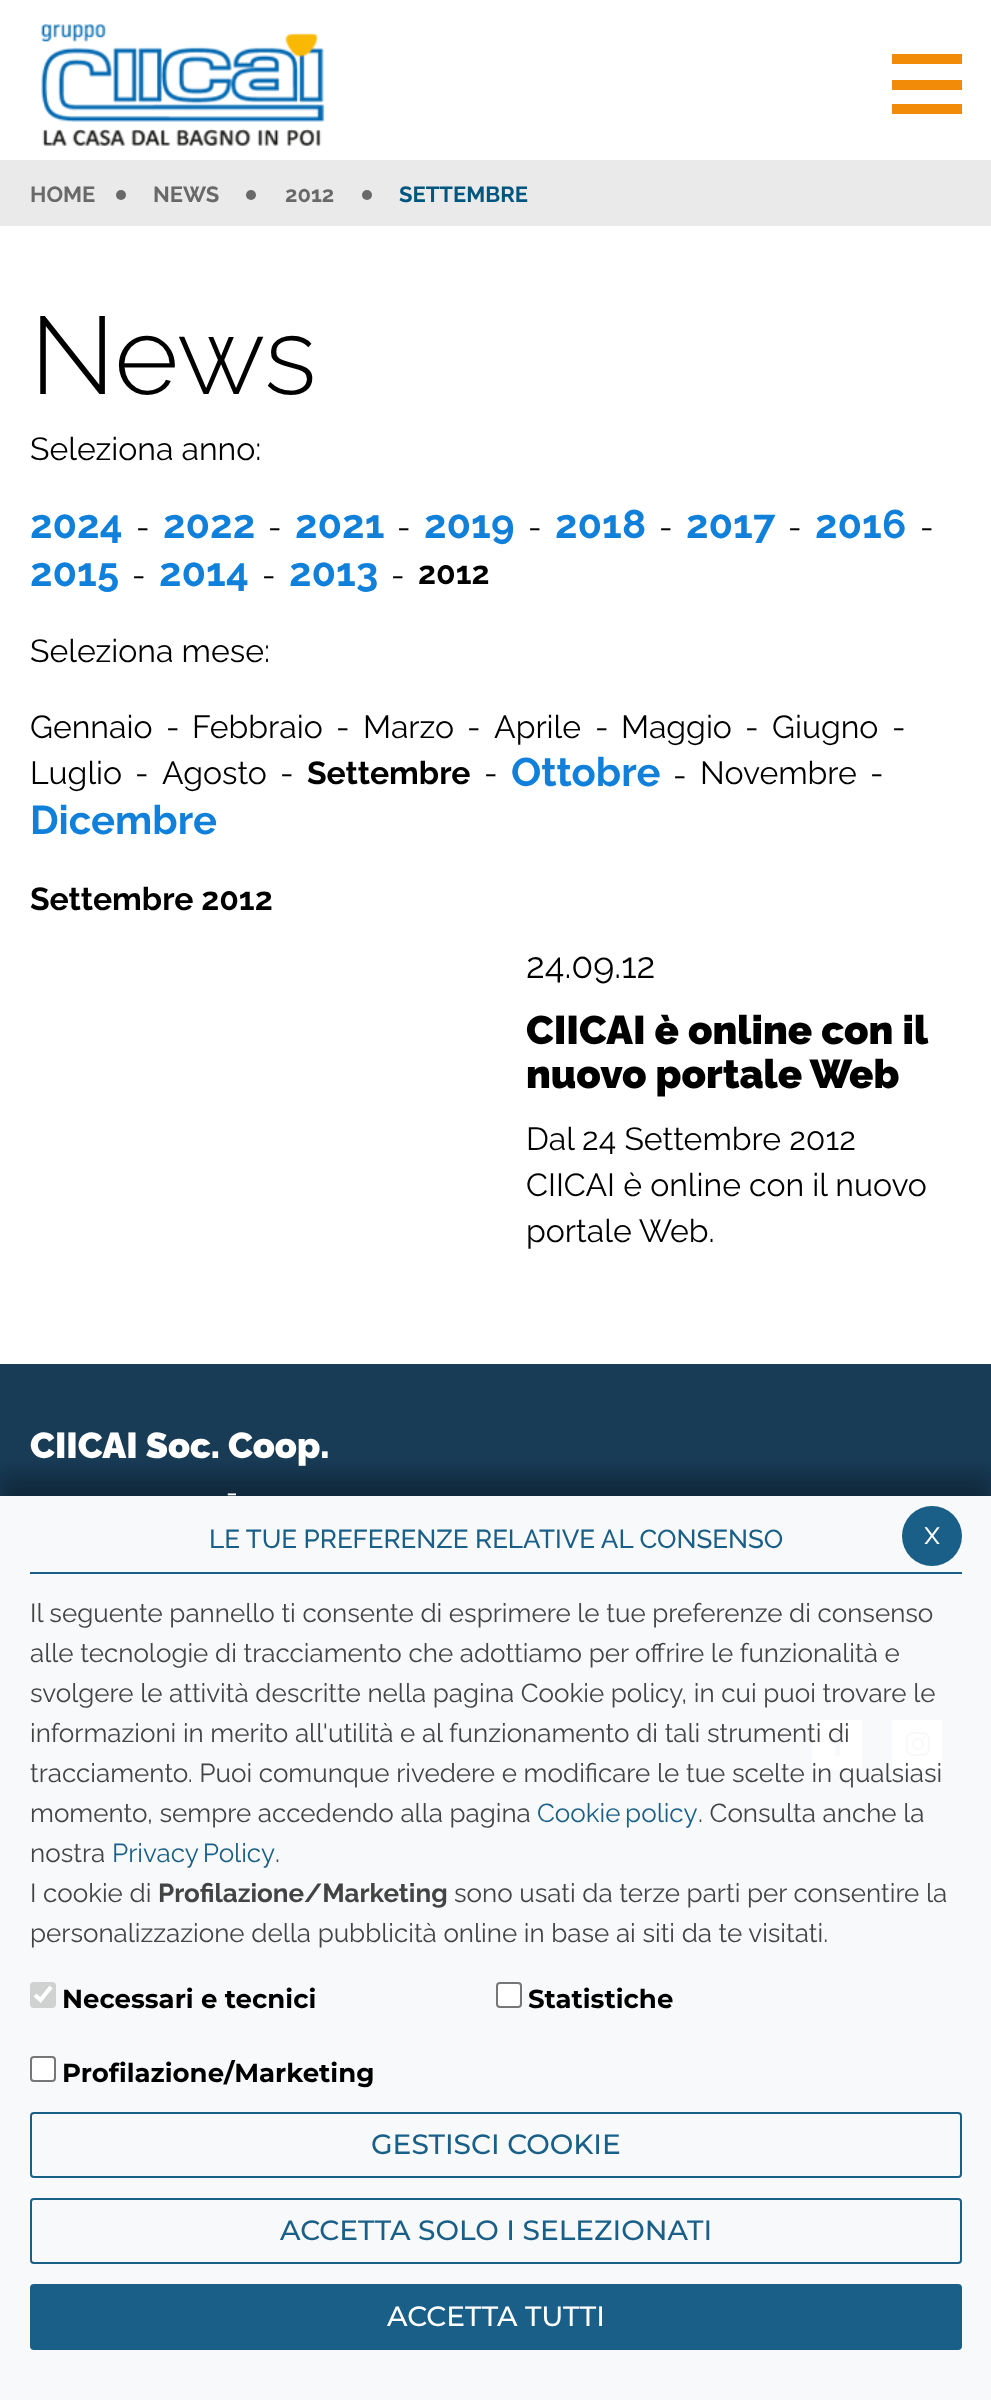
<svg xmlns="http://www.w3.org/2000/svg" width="991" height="2400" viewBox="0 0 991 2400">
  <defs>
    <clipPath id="clip1"><path d="M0 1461h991v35H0z"/></clipPath>
  </defs>
  <rect width="100%" height="100%" fill="#fff"/>
  <image x="41" y="24" width="284" height="122" href="img/1.png"/>
  <path d="M892 54h70v10H892z" fill="#f28c08"/>
  <path d="M892 80h70v10H892z" fill="#f28c08"/>
  <path d="M892 104h70v10H892z" fill="#f28c08"/>
  <path d="M0 160h991v66H0z" fill="#eaeaea"/>
  <circle cx="121" cy="195" r="5" fill="#696969"/>
  <circle cx="251" cy="195" r="5" fill="#696969"/>
  <circle cx="367" cy="195" r="5" fill="#696969"/>
  <path d="M0 1364h991v1036H0z" fill="#183b56"/>
  <path d="M812 1720h50v50H812z" fill="#fff"/>
  <image x="831" y="1730" width="14" height="26" href="img/2.png"/>
  <path d="M892 1720h50v50H892z" fill="#fff"/>
  <image x="906" y="1732" width="24" height="24" href="img/3.png"/>
  <g clip-path="url(#clip1)">
    <path d="M0 1476h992v904H0z" fill="#0000004d" filter="blur(10px)"/>
  </g>
  <path d="M0 1496h991v904H0z" fill="#fffffff7"/>
  <circle cx="932" cy="1536" r="30" fill="#1a5f87"/>
  <path d="M30 1572h932v2H30z" fill="#1a5f87"/>
  <rect x="30" y="1982" width="26" height="26" rx="4" fill="#7676764d"/>
  <path d="M35 1995L40.5 2000L51 1987" fill="none" stroke="#fff" stroke-width="4.2"/>
  <rect x="497" y="1983" width="24" height="24" rx="3" fill="#fff" stroke="#767676" stroke-width="2"/>
  <rect x="31" y="2057" width="24" height="24" rx="3" fill="#fff" stroke="#767676" stroke-width="2"/>
  <rect x="31" y="2113" width="930" height="64" rx="3" fill="none" stroke="#1a5f87" stroke-width="2"/>
  <rect x="31" y="2199" width="930" height="64" rx="3" fill="none" stroke="#1a5f87" stroke-width="2"/>
  <rect x="31" y="2285" width="930" height="64" rx="3" fill="#1a5f87" stroke="#1a5f87" stroke-width="2"/>
  <g font-family="Raleway" font-size="22" font-weight="bold" fill="#696969">
    <text x="30" y="202">HOME</text>
    <text x="153" y="202">NEWS</text>
    <text x="285" y="202">2012</text>
  </g>
  <text x="399" y="202" font-family="Raleway" font-size="22" font-weight="bold" fill="#00567f">SETTEMBRE</text>
  <text x="30" y="394" font-family="Raleway" font-size="110" font-weight="300" fill="#000">News</text>
  <text x="30" y="460" font-family="Raleway" font-size="32" fill="#000">Seleziona anno:</text>
  <text x="30" y="538" font-family="Raleway" font-size="40" font-weight="bold" fill="#1180db">2024</text>
  <text x="136" y="538" font-family="Raleway" font-size="32" fill="#000">-</text>
  <text x="163" y="538" font-family="Raleway" font-size="40" font-weight="bold" fill="#1180db">2022</text>
  <text x="268" y="538" font-family="Raleway" font-size="32" fill="#000">-</text>
  <text x="295" y="538" font-family="Raleway" font-size="40" font-weight="bold" fill="#1180db">2021</text>
  <text x="397" y="538" font-family="Raleway" font-size="32" fill="#000">-</text>
  <text x="424" y="538" font-family="Raleway" font-size="40" font-weight="bold" fill="#1180db">2019</text>
  <text x="528" y="538" font-family="Raleway" font-size="32" fill="#000">-</text>
  <text x="555" y="538" font-family="Raleway" font-size="40" font-weight="bold" fill="#1180db">2018</text>
  <text x="659" y="538" font-family="Raleway" font-size="32" fill="#000">-</text>
  <text x="686" y="538" font-family="Raleway" font-size="40" font-weight="bold" fill="#1180db">2017</text>
  <text x="788" y="538" font-family="Raleway" font-size="32" fill="#000">-</text>
  <text x="815" y="538" font-family="Raleway" font-size="40" font-weight="bold" fill="#1180db">2016</text>
  <text x="920" y="538" font-family="Raleway" font-size="32" fill="#000">-</text>
  <text x="30" y="586" font-family="Raleway" font-size="40" font-weight="bold" fill="#1180db">2015</text>
  <text x="132" y="586" font-family="Raleway" font-size="32" fill="#000">-</text>
  <text x="159" y="586" font-family="Raleway" font-size="40" font-weight="bold" fill="#1180db">2014</text>
  <text x="262" y="586" font-family="Raleway" font-size="32" fill="#000">-</text>
  <text x="289" y="586" font-family="Raleway" font-size="40" font-weight="bold" fill="#1180db">2013</text>
  <text x="391" y="586" font-family="Raleway" font-size="32" fill="#000">-</text>
  <text x="418" y="584" font-family="Raleway" font-size="32" font-weight="bold" fill="#000">2012</text>
  <g font-family="Raleway" font-size="32" fill="#000">
    <text x="30" y="662">Seleziona mese:</text>
    <text x="30" y="738">Gennaio</text>
    <text x="166" y="738">-</text>
    <text x="192" y="738">Febbraio</text>
    <text x="336" y="738">-</text>
    <text x="363" y="738">Marzo</text>
    <text x="467" y="738">-</text>
    <text x="494" y="738">Aprile</text>
    <text x="595" y="738">-</text>
    <text x="621" y="738">Maggio</text>
    <text x="745" y="738">-</text>
    <text x="772" y="738">Giugno</text>
    <text x="892" y="738">-</text>
    <text x="30" y="784">Luglio</text>
    <text x="135" y="784">-</text>
    <text x="162" y="784">Agosto</text>
    <text x="280" y="784">-</text>
  </g>
  <text x="307" y="784" font-family="Raleway" font-size="32" font-weight="bold" fill="#000">Settembre</text>
  <text x="484" y="784" font-family="Raleway" font-size="32" fill="#000">-</text>
  <text x="511" y="786" font-family="Raleway" font-size="40" font-weight="bold" fill="#1180db">Ottobre</text>
  <g font-family="Raleway" font-size="32" fill="#000">
    <text x="673" y="786">-</text>
    <text x="700" y="784">Novembre</text>
    <text x="870" y="784">-</text>
  </g>
  <text x="30" y="834" font-family="Raleway" font-size="40" font-weight="bold" fill="#1180db">Dicembre</text>
  <text x="30" y="910" font-family="Raleway" font-size="32" font-weight="bold" fill="#000">Settembre 2012</text>
  <text x="526" y="978" font-family="Raleway" font-size="36" fill="#000">24.09.12</text>
  <g font-family="Raleway" font-size="40" font-weight="900" fill="#000">
    <text x="526" y="1044">CIICAI è online con il</text>
    <text x="526" y="1088">nuovo portale Web</text>
  </g>
  <g font-family="Raleway" font-size="32" fill="#000">
    <text x="526" y="1150">Dal 24 Settembre 2012</text>
    <text x="526" y="1196">CIICAI è online con il nuovo</text>
    <text x="526" y="1242">portale Web.</text>
  </g>
  <text x="30" y="1458" font-family="Raleway" font-size="36" font-weight="900" fill="#fff">CIICAI Soc. Coop.</text>
  <text x="226" y="1502" font-family="Raleway" font-size="28" fill="#fff">-</text>
  <text x="924" y="1544" font-family="Raleway" font-size="32" fill="#fff">x</text>
  <text x="209" y="1548" font-family="Raleway" font-size="26" font-weight="500" fill="#1a5f87">LE TUE PREFERENZE RELATIVE AL CONSENSO</text>
  <g font-family="Raleway" font-size="26" fill="#444">
    <text x="30" y="1622">Il seguente pannello ti consente di esprimere le tue preferenze di consenso</text>
    <text x="30" y="1662">alle tecnologie di tracciamento che adottiamo per offrire le funzionalità e</text>
    <text x="30" y="1702">svolgere le attività descritte nella pagina Cookie policy, in cui puoi trovare le</text>
    <text x="30" y="1742">informazioni in merito all'utilità e al funzionamento di tali strumenti di</text>
    <text x="30" y="1782">tracciamento. Puoi comunque rivedere e modificare le tue scelte in qualsiasi</text>
    <text x="30" y="1822">momento, sempre accedendo alla pagina</text>
  </g>
  <text x="537" y="1822" word-spacing="-2" font-family="Raleway" font-size="26" fill="#1a5f87">Cookie policy</text>
  <g font-family="Raleway" font-size="26" fill="#444">
    <text x="698" y="1822">. Consulta anche la</text>
    <text x="30" y="1862">nostra</text>
  </g>
  <text x="112" y="1862" word-spacing="-2" font-family="Raleway" font-size="26" fill="#1a5f87">Privacy Policy</text>
  <g font-family="Raleway" font-size="26" fill="#444">
    <text x="275" y="1862">.</text>
    <text x="30" y="1902">I cookie di</text>
  </g>
  <text x="158" y="1902" font-family="Raleway" font-size="26" font-weight="bold" fill="#444">Profilazione/Marketing</text>
  <g font-family="Raleway" font-size="26" fill="#444">
    <text x="454" y="1902">sono usati da terze parti per consentire la</text>
    <text x="30" y="1942">personalizzazione della pubblicità online in base ai siti da te visitati.</text>
  </g>
  <g font-family="Montserrat" font-size="26" font-weight="bold" fill="#000">
    <text x="62" y="2008">Necessari e tecnici</text>
    <text x="528" y="2008">Statistiche</text>
    <text x="62" y="2082">Profilazione/Marketing</text>
  </g>
  <g font-family="Montserrat" font-size="28" font-weight="500" fill="#1a5f87">
    <text x="371" y="2154">GESTISCI COOKIE</text>
    <text x="280" y="2240">ACCETTA SOLO I SELEZIONATI</text>
  </g>
  <text x="387" y="2326" font-family="Montserrat" font-size="28" font-weight="500" fill="#fff">ACCETTA TUTTI</text>
</svg>
